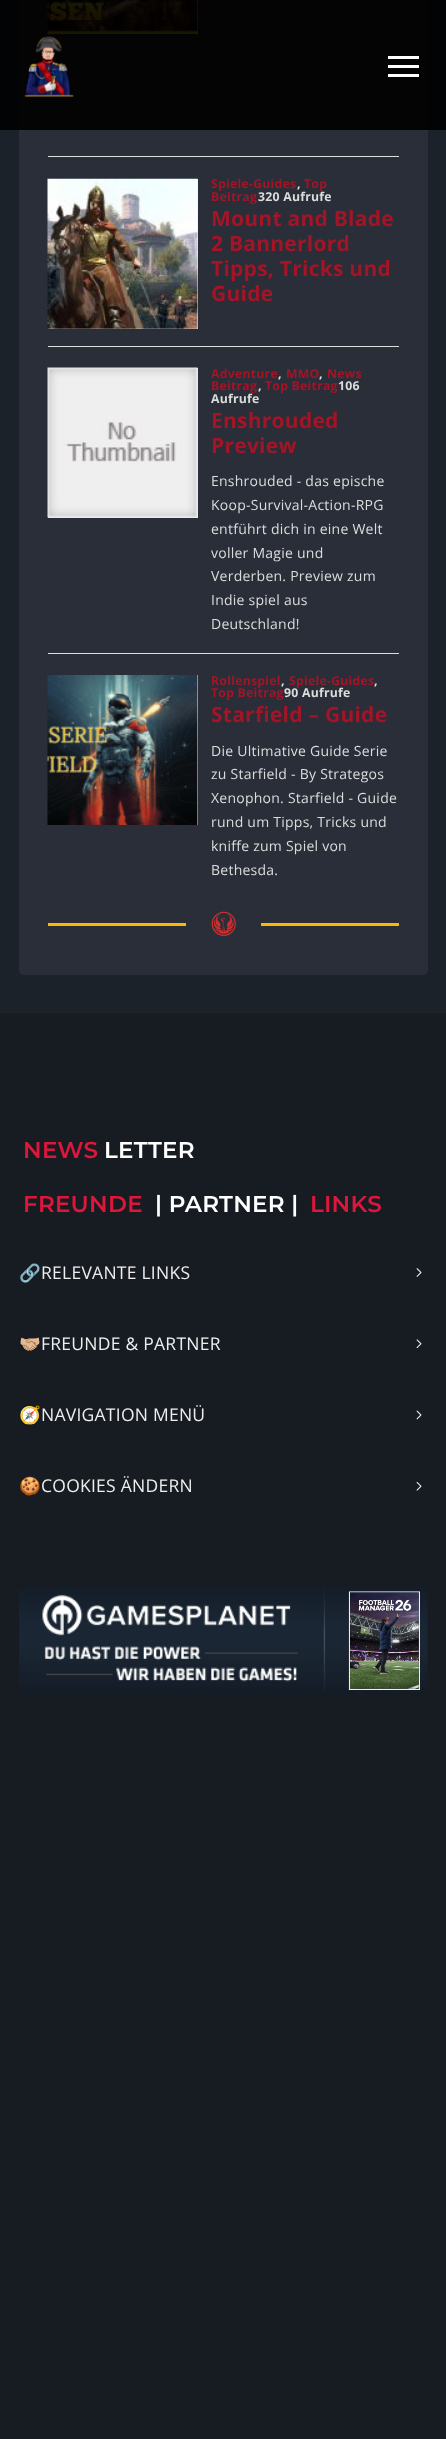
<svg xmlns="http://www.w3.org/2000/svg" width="446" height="2439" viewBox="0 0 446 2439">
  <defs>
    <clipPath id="clip1"><rect x="19" y="1075" width="409" height="474" rx="5"/></clipPath>
  </defs>
  <rect width="100%" height="100%" fill="#1c222a"/>
  <rect x="19" y="-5" width="409" height="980" rx="5" fill="#292e38"/>
  <path d="M48 0h150v34H48z" fill="#f0f0f0"/>
  <image x="47" y="0" width="151" height="34" href="img/2.png"/>
  <path d="M0 0h446v130H0z" fill="#000000e6"/>
  <image x="24" y="36" width="50" height="61" href="img/1.png"/>
  <path d="M388 56h31v3H388z" fill="#fff"/>
  <path d="M388 65h31v3H388z" fill="#fff"/>
  <path d="M388 74h31v3H388z" fill="#fff"/>
  <path d="M48 156h351v1H48z" fill="#ddd"/>
  <path d="M48 346h351v1H48z" fill="#ddd"/>
  <path d="M48 179h150v150H48z" fill="#f0f0f0"/>
  <image x="47" y="178" width="151" height="151" href="img/3.png"/>
  <path d="M48 653h351v1H48z" fill="#ddd"/>
  <path d="M48 368h150v150H48z" fill="#f0f0f0"/>
  <image x="47" y="367" width="151" height="151" href="img/4.png"/>
  <path d="M197 675h1v150H197z" fill="#f0f0f0"/>
  <image x="47" y="675" width="151" height="150" href="img/5.png"/>
  <path d="M48 923h138v3H48z" fill="#fcb900"/>
  <image x="211" y="911" width="25" height="25" href="img/6.png"/>
  <path d="M261 923h138v3H261z" fill="#fcb900"/>
  <path d="M0 1013h446v1426H0z" fill="#171c23"/>
  <image x="416" y="1268" width="6" height="9" href="img/7.png"/>
  <image x="416" y="1339" width="6" height="10" href="img/8.png"/>
  <image x="416" y="1410" width="6" height="10" href="img/9.png"/>
  <image x="416" y="1481" width="6" height="10" href="img/10.png"/>
  <image x="19" y="1587" width="409" height="107" href="img/11.png"/>
  <text x="211" y="188" font-family="Open Sans" font-size="12.25" font-weight="bold" letter-spacing="0.25" fill="#a41427">Spiele-Guides</text>
  <text x="297" y="188" font-family="Open Sans" font-size="12.25" font-weight="bold" letter-spacing="0.25" fill="#dcdcdc">,</text>
  <g font-family="Open Sans" font-size="12.25" font-weight="bold" letter-spacing="0.25" fill="#a41427">
    <text x="304" y="188">Top</text>
    <text x="211" y="201">Beitrag</text>
  </g>
  <text x="258" y="201" font-family="Open Sans" font-size="12.25" font-weight="bold" letter-spacing="0.25" fill="#dcdcdc">320 Aufrufe</text>
  <g font-family="Open Sans" font-size="21" font-weight="bold" letter-spacing="0.25" fill="#a41427">
    <text x="211" y="226">Mount and Blade</text>
    <text x="211" y="251">2 Bannerlord</text>
    <text x="211" y="276">Tipps, Tricks und</text>
    <text x="211" y="301">Guide</text>
  </g>
  <text x="211" y="378" font-family="Open Sans" font-size="12.25" font-weight="bold" letter-spacing="0.25" fill="#a41427">Adventure</text>
  <text x="278" y="378" font-family="Open Sans" font-size="12.25" font-weight="bold" letter-spacing="0.25" fill="#dcdcdc">,</text>
  <text x="286" y="378" font-family="Open Sans" font-size="12.25" font-weight="bold" letter-spacing="0.25" fill="#a41427">MMO</text>
  <text x="319" y="378" font-family="Open Sans" font-size="12.25" font-weight="bold" letter-spacing="0.25" fill="#dcdcdc">,</text>
  <g font-family="Open Sans" font-size="12.25" font-weight="bold" letter-spacing="0.25" fill="#a41427">
    <text x="327" y="378">News</text>
    <text x="211" y="390">Beitrag</text>
  </g>
  <text x="258" y="390" font-family="Open Sans" font-size="12.25" font-weight="bold" letter-spacing="0.25" fill="#dcdcdc">,</text>
  <text x="265" y="390" font-family="Open Sans" font-size="12.25" font-weight="bold" letter-spacing="0.25" fill="#a41427">Top Beitrag</text>
  <g font-family="Open Sans" font-size="12.25" font-weight="bold" letter-spacing="0.25" fill="#dcdcdc">
    <text x="338" y="390">106</text>
    <text x="211" y="403">Aufrufe</text>
  </g>
  <g font-family="Open Sans" font-size="21" font-weight="bold" letter-spacing="0.25" fill="#a41427">
    <text x="211" y="428">Enshrouded</text>
    <text x="211" y="453">Preview</text>
  </g>
  <g font-family="Open Sans" font-size="14" letter-spacing="0.25" fill="#dcdcdc">
    <text x="211" y="486">Enshrouded - das epische</text>
    <text x="211" y="510">Koop-Survival-Action-RPG</text>
    <text x="211" y="534">entführt dich in eine Welt</text>
    <text x="211" y="558">voller Magie und</text>
    <text x="211" y="581">Verderben. Preview zum</text>
    <text x="211" y="605">Indie spiel aus</text>
    <text x="211" y="629">Deutschland!</text>
  </g>
  <text x="211" y="685" font-family="Open Sans" font-size="12.25" font-weight="bold" letter-spacing="0.25" fill="#a41427">Rollenspiel</text>
  <text x="281" y="685" font-family="Open Sans" font-size="12.25" font-weight="bold" letter-spacing="0.25" fill="#dcdcdc">,</text>
  <text x="289" y="685" font-family="Open Sans" font-size="12.25" font-weight="bold" letter-spacing="0.25" fill="#a41427">Spiele-Guides</text>
  <text x="374" y="685" font-family="Open Sans" font-size="12.25" font-weight="bold" letter-spacing="0.25" fill="#dcdcdc">,</text>
  <text x="211" y="697" font-family="Open Sans" font-size="12.25" font-weight="bold" letter-spacing="0.25" fill="#a41427">Top Beitrag</text>
  <text x="284" y="697" font-family="Open Sans" font-size="12.25" font-weight="bold" letter-spacing="0.25" fill="#dcdcdc">90 Aufrufe</text>
  <text x="211" y="722" font-family="Open Sans" font-size="21" font-weight="bold" letter-spacing="0.25" fill="#a41427">Starfield – Guide</text>
  <g font-family="Open Sans" font-size="14" letter-spacing="0.25" fill="#dcdcdc">
    <text x="211" y="756">Die Ultimative Guide Serie</text>
    <text x="211" y="779">zu Starfield - By Strategos</text>
    <text x="211" y="803">Xenophon. Starfield - Guide</text>
    <text x="211" y="827">rund um Tipps, Tricks und</text>
    <text x="211" y="851">kniffe zum Spiel von</text>
    <text x="211" y="875">Bethesda.</text>
  </g>
  <text x="23" y="1158" font-family="Montserrat" font-size="23" font-weight="600" letter-spacing="0.25" fill="#dd163b">NEWS</text>
  <text x="104" y="1158" font-family="Montserrat" font-size="23" font-weight="600" letter-spacing="0.25" fill="#fff">LETTER</text>
  <text x="23" y="1212" font-family="Montserrat" font-size="23" font-weight="600" letter-spacing="0.25" fill="#dd163b">FREUNDE</text>
  <text x="155" y="1212" font-family="Montserrat" font-size="23" font-weight="600" letter-spacing="0.25" fill="#fff">| PARTNER |</text>
  <text x="310" y="1212" font-family="Montserrat" font-size="23" font-weight="600" letter-spacing="0.25" fill="#dd163b">LINKS</text>
  <g clip-path="url(#clip1)">
    <text x="19" y="1279" font-family="Noto Color Emoji" font-size="17.5" letter-spacing="0.25" fill="#eee">🔗</text>
  </g>
  <text x="41" y="1279" font-family="Open Sans" font-size="17.5" letter-spacing="0.25" fill="#eee">RELEVANTE LINKS</text>
  <g clip-path="url(#clip1)">
    <text x="19" y="1350" font-family="Noto Color Emoji" font-size="17.5" letter-spacing="0.25" fill="#eee">🤝🏼</text>
  </g>
  <text x="41" y="1350" font-family="Open Sans" font-size="17.5" letter-spacing="0.25" fill="#eee">FREUNDE &amp; PARTNER</text>
  <g clip-path="url(#clip1)">
    <text x="19" y="1421" font-family="Noto Color Emoji" font-size="17.5" letter-spacing="0.25" fill="#eee">🧭</text>
  </g>
  <text x="41" y="1421" font-family="Open Sans" font-size="17.5" letter-spacing="0.25" fill="#eee">NAVIGATION MENÜ</text>
  <g clip-path="url(#clip1)">
    <text x="19" y="1492" font-family="Noto Color Emoji" font-size="17.5" letter-spacing="0.25" fill="#eee">🍪</text>
  </g>
  <text x="41" y="1492" font-family="Open Sans" font-size="17.5" letter-spacing="0.25" fill="#eee">COOKIES ÄNDERN</text>
</svg>
